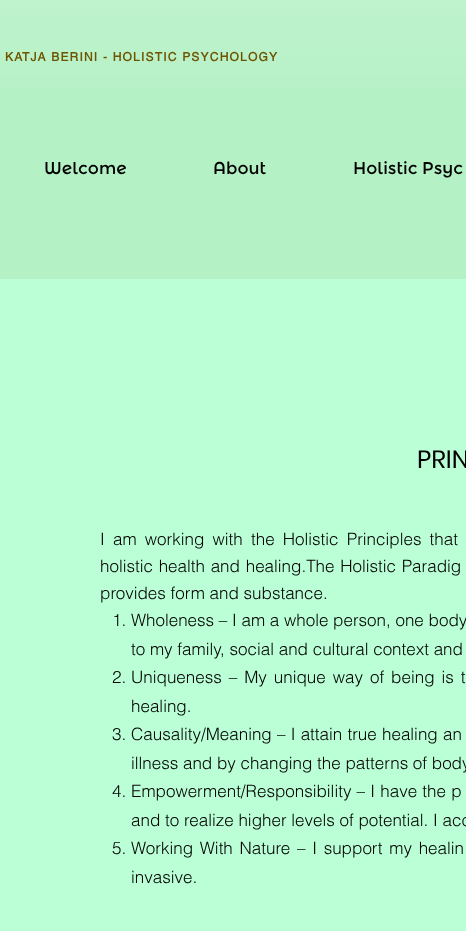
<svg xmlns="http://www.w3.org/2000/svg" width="466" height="931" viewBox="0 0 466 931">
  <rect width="100%" height="100%" fill="#baffd6"/>
  <path d="M0 0h466v279H0z" fill="#b4f1c5"/>
  <image x="0" y="0" width="466" height="89" href="img/1.png"/>
  <text x="5" y="61" font-family="helvetica" font-size="12" font-weight="bold" letter-spacing="1.2" fill="#6e5400">KATJA BERINI - HOLISTIC PSYCHOLOGY</text>
  <g font-family="Montserrat Alternates" font-size="17" fill="#000">
    <text x="44" y="174">Welcome</text>
    <text x="213" y="174">About</text>
    <text x="353" y="174">Holistic Psyc</text>
  </g>
  <text x="417" y="468" font-family="Poppins" font-size="25" fill="#000">PRIN</text>
  <g font-family="helvetica" font-size="17" font-weight="300" fill="#000">
    <text x="100" y="545" word-spacing="3.5">I am working with the Holistic Principles that</text>
    <text x="100" y="572" word-spacing="1">holistic health and healing.The Holistic Paradig</text>
    <text x="100" y="599">provides form and substance.</text>
    <text x="112" y="626">1. Wholeness – I am a whole person, one body</text>
    <text x="131" y="655">to my family, social and cultural context and</text>
    <text x="112" y="683">2.</text>
    <text x="131" y="683" word-spacing="2.25">Uniqueness – My unique way of being is t</text>
    <text x="131" y="712">healing.</text>
    <text x="112" y="740">3.</text>
    <text x="131" y="740" word-spacing="0.5">Causality/Meaning – I attain true healing an</text>
    <text x="131" y="769">illness and by changing the patterns of body</text>
    <text x="112" y="797">4.</text>
    <text x="131" y="797" word-spacing="0.5">Empowerment/Responsibility – I have the p</text>
    <text x="131" y="826">and to realize higher levels of potential. I acc</text>
    <text x="112" y="854">5.</text>
    <text x="131" y="854" word-spacing="2">Working With Nature – I support my healin</text>
    <text x="131" y="883">invasive.</text>
  </g>
</svg>
